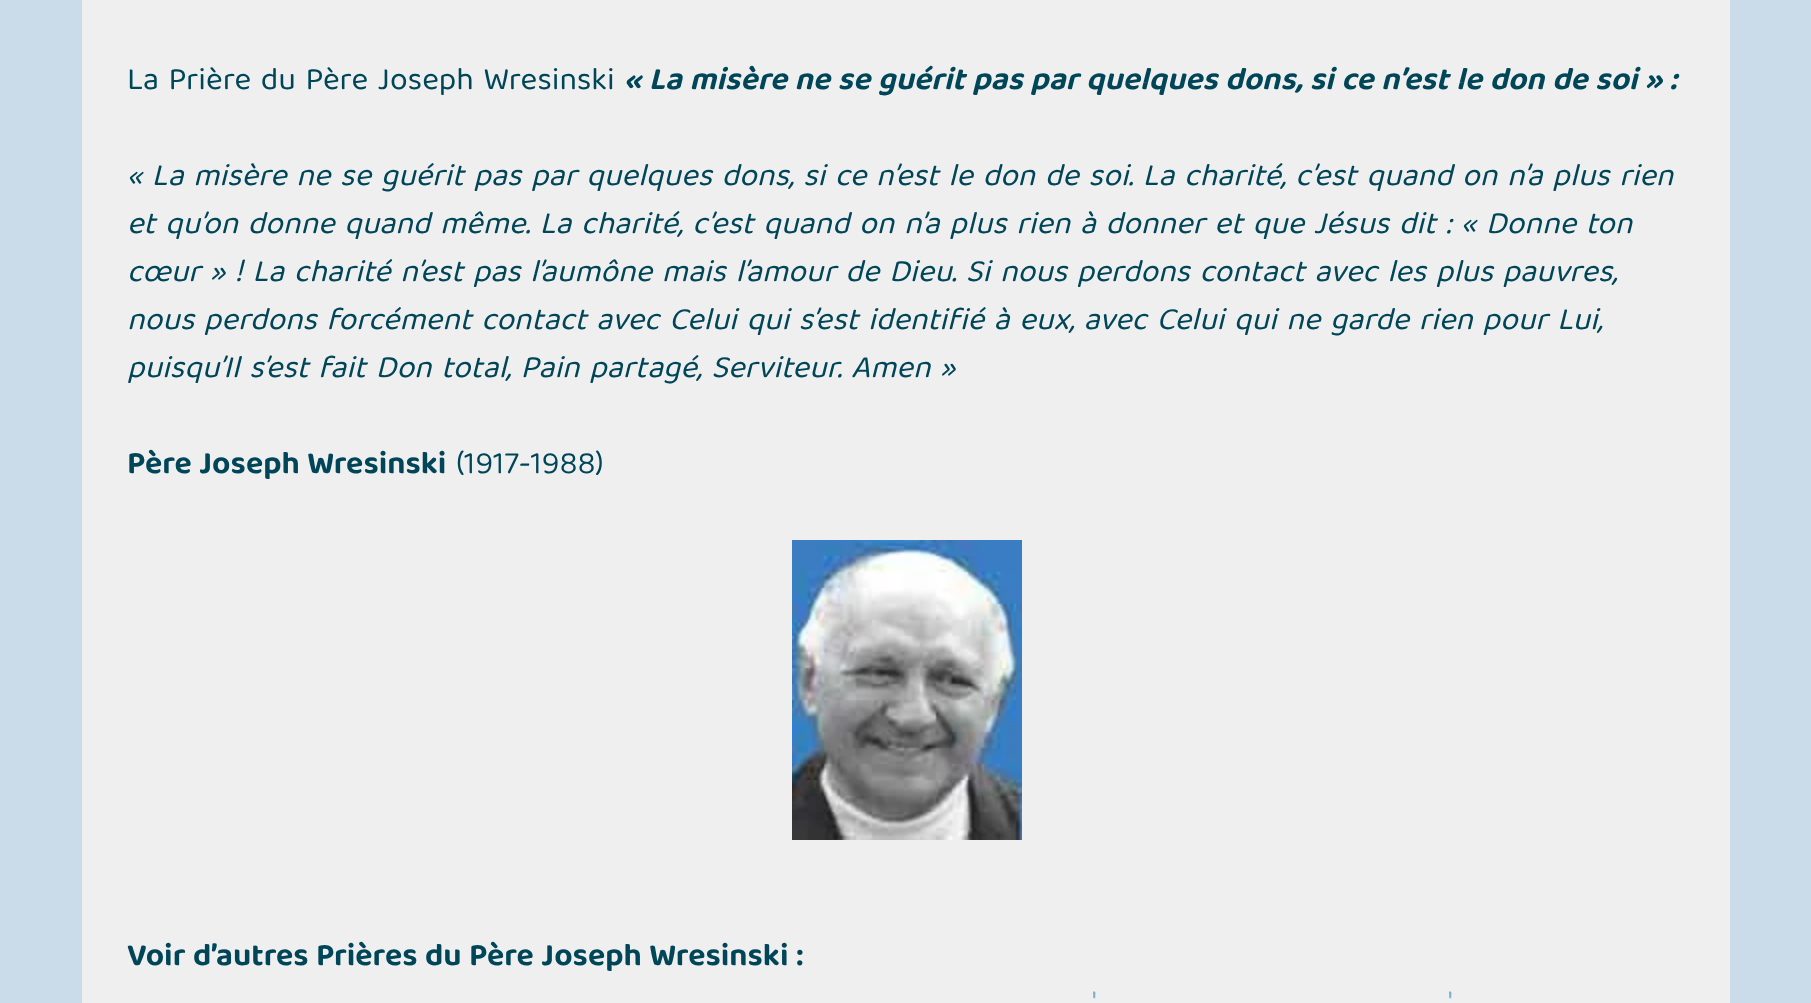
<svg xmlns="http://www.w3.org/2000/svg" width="1811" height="1003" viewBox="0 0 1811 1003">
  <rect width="100%" height="100%" fill="#cadce9"/>
  <path d="M82 0h1648v1003H82z" fill="#efefef"/>
  <image x="792" y="540" width="230" height="300" href="img/1.png"/>
  <text x="127" y="89" font-family="'Baloo Tamma 2'" font-size="32" fill="#004658">La Prière du Père Joseph Wresinski</text>
  <text x="624" y="89" font-family="'Baloo Tamma 2'" font-size="32" font-weight="bold" font-style="italic" fill="#004658">« La misère ne se guérit pas par quelques dons, si ce n’est le don de soi » :</text>
  <g font-family="'Baloo Tamma 2'" font-size="32" font-style="italic" fill="#004658">
    <text x="127" y="185">« La misère ne se guérit pas par quelques dons, si ce n’est le don de soi. La charité, c’est quand on n’a plus rien</text>
    <text x="127" y="233">et qu’on donne quand même. La charité, c’est quand on n’a plus rien à donner et que Jésus dit : « Donne ton</text>
    <text x="127" y="281">cœur » ! La charité n’est pas l’aumône mais l’amour de Dieu. Si nous perdons contact avec les plus pauvres,</text>
    <text x="127" y="329">nous perdons forcément contact avec Celui qui s’est identifié à eux, avec Celui qui ne garde rien pour Lui,</text>
    <text x="127" y="377">puisqu’Il s’est fait Don total, Pain partagé, Serviteur. Amen »</text>
  </g>
  <text x="127" y="473" font-family="'Baloo Tamma 2'" font-size="32" font-weight="bold" fill="#004658">Père Joseph Wresinski</text>
  <text x="456" y="473" font-family="'Baloo Tamma 2'" font-size="32" fill="#004658">(1917-1988)</text>
  <text x="127" y="965" font-family="'Baloo Tamma 2'" font-size="32" font-weight="bold" fill="#004658">Voir d’autres Prières du Père Joseph Wresinski :</text>
  <g font-family="'Baloo Tamma 2'" font-size="32" fill="#80b3cf">
    <text x="1092" y="1013">'</text>
    <text x="1448" y="1013">'</text>
  </g>
</svg>
